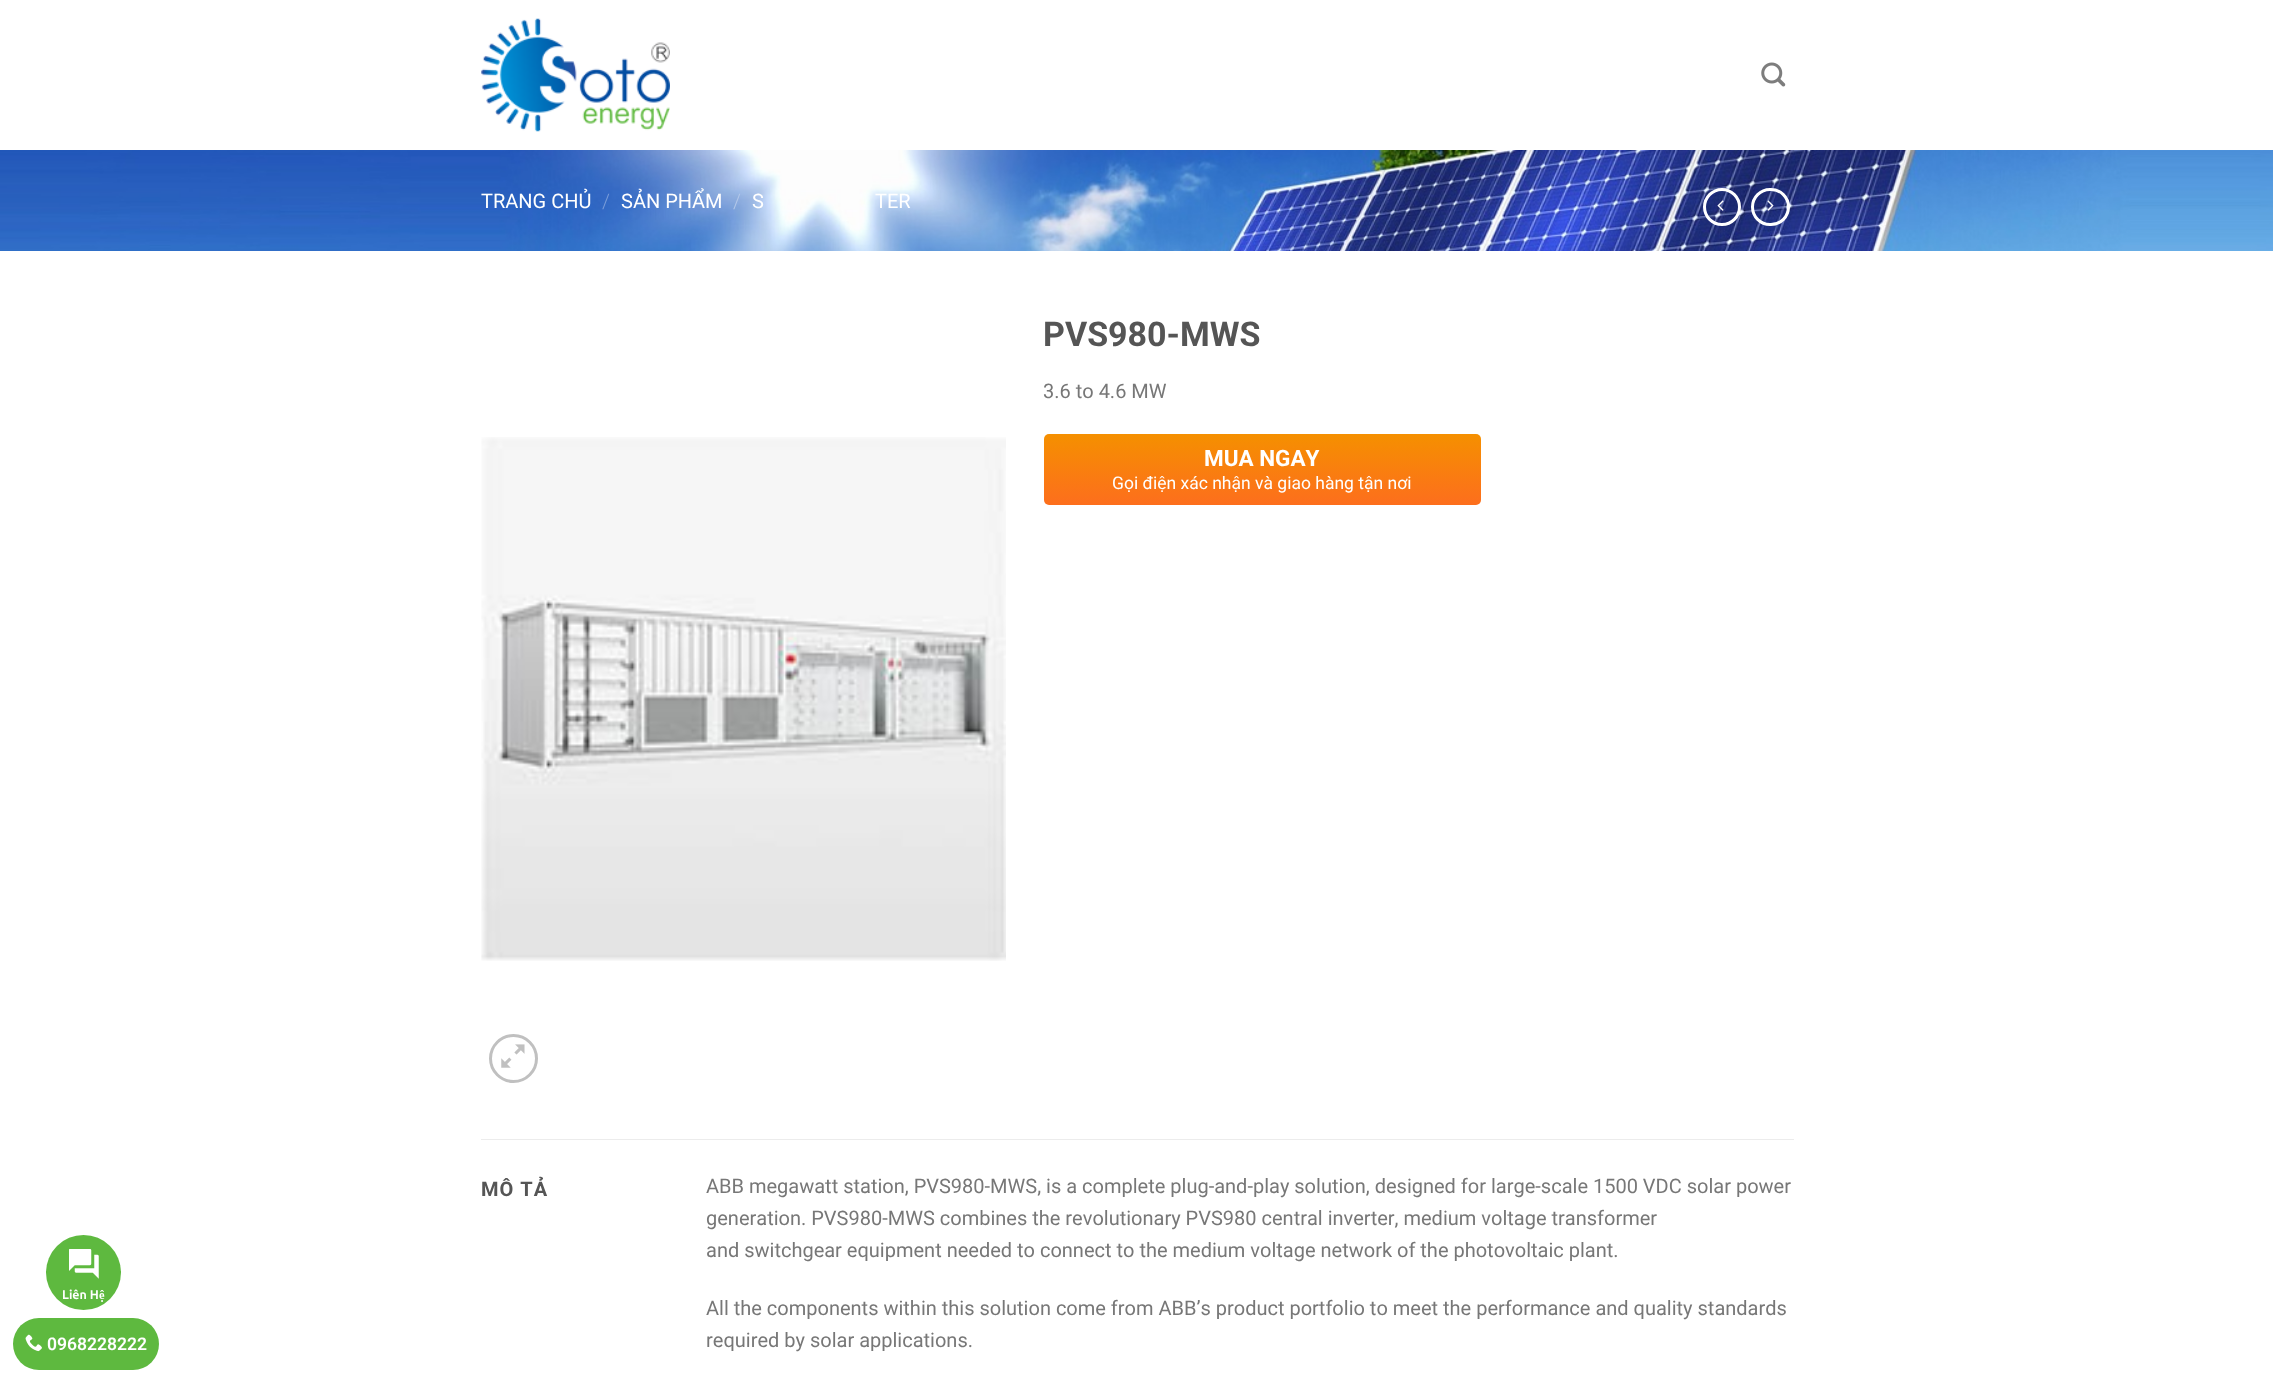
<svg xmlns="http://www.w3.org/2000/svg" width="2273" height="1388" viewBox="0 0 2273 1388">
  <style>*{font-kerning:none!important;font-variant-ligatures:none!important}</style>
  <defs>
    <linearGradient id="g1" gradientUnits="userSpaceOnUse" x1="1263" y1="434" x2="1263" y2="505"><stop offset="0" stop-color="#f59000"/><stop offset="1" stop-color="#fd6e1d"/></linearGradient>
  </defs>
  <rect width="100%" height="100%" fill="#fff"/>
  <circle cx="83.5" cy="1272.5" r="37.5" fill="#5eb93f"/>
  <image x="69" y="1249" width="30" height="30" href="img/1.png"/>
  <image x="481" y="18" width="189" height="114" href="img/2.png"/>
  <image x="1761" y="62" width="25" height="25" href="img/3.png"/>
  <image x="0" y="150" width="2273" height="101" href="img/4.png"/>
  <circle cx="1722" cy="207" r="17.5" fill="none" stroke="#fff" stroke-width="3"/>
  <image x="1717" y="200" width="7" height="11" href="img/5.png"/>
  <rect x="1752.5" y="189.5" width="36" height="35" rx="17.5" fill="none" stroke="#fff" stroke-width="3"/>
  <image x="1767" y="200" width="7" height="11" href="img/6.png"/>
  <rect x="1044" y="434" width="437" height="71" rx="5" fill="url(#g1)"/>
  <image x="481" y="437" width="525" height="524" href="img/7.png"/>
  <circle cx="513.5" cy="1058.5" r="23" fill="none" stroke="#c0c0c0" stroke-width="3"/>
  <image x="501" y="1044" width="24" height="24" href="img/8.png"/>
  <path d="M481 1139h1313v1H481z" fill="#ececec"/>
  <rect x="13" y="1318" width="146" height="52" rx="26" fill="#5eb93f"/>
  <image x="25" y="1334" width="17" height="18" href="img/9.png"/>
  <text x="62" y="1299" font-family="Ubuntu" font-size="12.5" font-weight="bold" fill="#fff">Liên Hệ</text>
  <text x="481" y="208" font-family="Roboto" font-size="20" fill="#fff">TRANG CHỦ</text>
  <text x="602" y="208" font-family="Roboto" font-size="20" font-weight="300" fill="#7a9dd9">/</text>
  <text x="621" y="208" font-family="Roboto" font-size="20" fill="#fff">SẢN PHẨM</text>
  <text x="733" y="208" font-family="Roboto" font-size="20" font-weight="300" fill="#b3c8e9">/</text>
  <g font-family="Roboto" font-size="20" fill="#fff">
    <text x="752" y="208">S</text>
    <text x="875" y="208">TER</text>
  </g>
  <text x="1043" y="346" font-family="Roboto" font-size="34" font-weight="bold" fill="#555">PVS980-MWS</text>
  <text x="1043" y="398" font-family="Roboto" font-size="20" fill="#777">3.6 to 4.6 MW</text>
  <text x="1204" y="466" font-family="Roboto" font-size="22.5" font-weight="bold" fill="#fff">MUA NGAY</text>
  <text x="1112" y="489" font-family="Roboto" font-size="17.5" fill="#fff">Gọi điện xác nhận và giao hàng tận nơi</text>
  <text x="481" y="1196" font-family="Roboto" font-size="20" font-weight="bold" letter-spacing="1" fill="#555">MÔ TẢ</text>
  <g font-family="Roboto" font-size="20" fill="#777">
    <text x="706" y="1193">ABB megawatt station, PVS980-MWS, is a complete plug-and-play solution, designed for large-scale 1500 VDC solar power</text>
    <text x="706" y="1225">generation. PVS980-MWS combines the revolutionary PVS980 central inverter, medium voltage transformer</text>
    <text x="706" y="1257">and switchgear equipment needed to connect to the medium voltage network of the photovoltaic plant.</text>
    <text x="706" y="1315">All the components within this solution come from ABB’s product portfolio to meet the performance and quality standards</text>
    <text x="706" y="1347">required by solar applications.</text>
  </g>
  <text x="47" y="1350" font-family="Roboto" font-size="17.5" font-weight="600" fill="#fff">0968228222</text>
</svg>
